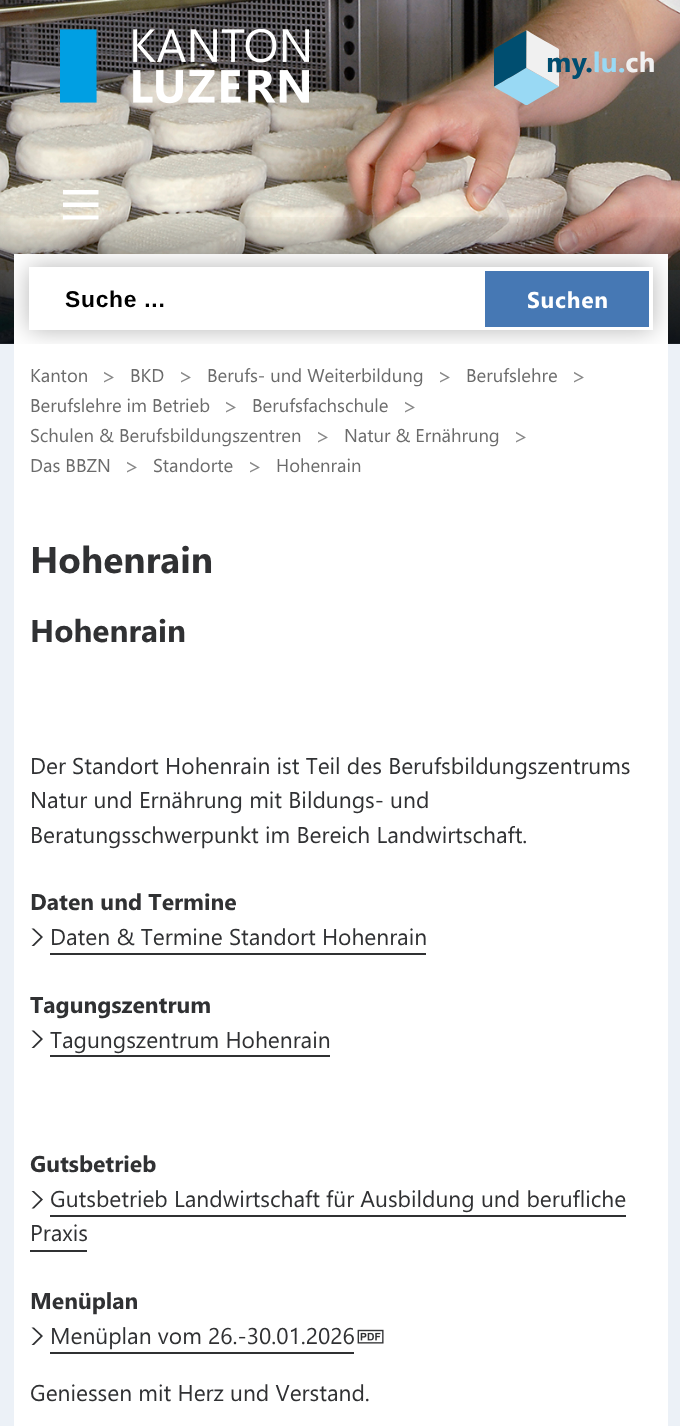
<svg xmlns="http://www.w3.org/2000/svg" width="680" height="1426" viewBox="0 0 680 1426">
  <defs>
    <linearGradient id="g1" gradientUnits="userSpaceOnUse" x1="341" y1="344" x2="341" y2="0"><stop offset="0" stop-color="#000" stop-opacity="0.85"/><stop offset="0.38" stop-color="#000" stop-opacity="0"/></linearGradient>
    <clipPath id="clip1"><path d="M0 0h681v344H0z"/></clipPath>
  </defs>
  <rect width="100%" height="100%" fill="#fff"/>
  <image x="0" y="0" width="680" height="344" href="img/1.png"/>
  <image x="60" y="29" width="249" height="75" href="img/2.png"/>
  <image x="494" y="30" width="160" height="75" href="img/3.png"/>
  <path d="M0 217h680v127H0z" fill="url(#g1)"/>
  <path d="M63 190V194.5H98.5V190ZM63 202.5V207H98.5V202.5ZM63 215.5V219.5H98.5V215.5Z" fill="#fff"/>
  <path d="M14 254h654v90H14z" fill="#fff"/>
  <g clip-path="url(#clip1)">
    <path d="M29 267h624v63H29z" fill="#0000004a" filter="blur(12px)"/>
  </g>
  <path d="M29 267h624v63H29z" fill="#fff"/>
  <path d="M485 271h164v56H485z" fill="#4678b4"/>
  <path d="M0 270h14v1156H0z" fill="#4678b41a"/>
  <path d="M668 270h12v1156H668z" fill="#4678b41a"/>
  <path d="M40.5 937L31.5 946H34L43 937L34 928.5H31.5Z" fill="#303133"/>
  <path d="M50 953h376v2H50z" fill="#303133"/>
  <path d="M40.5 1039L31.5 1048H34L43 1039L34 1030.5H31.5Z" fill="#303133"/>
  <path d="M50 1055h280v2H50z" fill="#303133"/>
  <path d="M40.5 1199.5L31.5 1208.5H34L43 1199.5L34 1191H31.5Z" fill="#303133"/>
  <path d="M50 1215h576v2H50z" fill="#303133"/>
  <path d="M30 1250h57v2H30z" fill="#303133"/>
  <path d="M40.5 1336L31.5 1345H34L43 1336L34 1327.5H31.5Z" fill="#303133"/>
  <path d="M50 1352h304v2H50z" fill="#303133"/>
  <image x="357" y="1329" width="27" height="15" href="img/4.png"/>
  <text x="65" y="307" font-family="Liberation Sans" font-size="22.8" font-weight="bold" letter-spacing="0.75" fill="#000">Suche ...</text>
  <text x="527" y="308" font-family="Segoe UI" font-size="22.8" font-weight="bold" letter-spacing="0.75" fill="#fff">Suchen</text>
  <text x="30" y="382" font-family="Segoe UI" font-size="18.5" fill="#6b6b6b">Kanton</text>
  <text x="101" y="384" font-family="Segoe UI" font-size="22.8" fill="#898989">&gt;</text>
  <text x="130" y="382" font-family="Segoe UI" font-size="18.5" fill="#6b6b6b">BKD</text>
  <text x="178" y="384" font-family="Segoe UI" font-size="22.8" fill="#898989">&gt;</text>
  <text x="207" y="382" font-family="Segoe UI" font-size="18.5" fill="#6b6b6b">Berufs- und Weiterbildung</text>
  <text x="437" y="384" font-family="Segoe UI" font-size="22.8" fill="#898989">&gt;</text>
  <text x="466" y="382" font-family="Segoe UI" font-size="18.5" fill="#6b6b6b">Berufslehre</text>
  <text x="571" y="384" font-family="Segoe UI" font-size="22.8" fill="#898989">&gt;</text>
  <text x="30" y="412" font-family="Segoe UI" font-size="18.5" fill="#6b6b6b">Berufslehre im Betrieb</text>
  <text x="223" y="414" font-family="Segoe UI" font-size="22.8" fill="#898989">&gt;</text>
  <text x="252" y="412" font-family="Segoe UI" font-size="18.5" fill="#6b6b6b">Berufsfachschule</text>
  <text x="402" y="414" font-family="Segoe UI" font-size="22.8" fill="#898989">&gt;</text>
  <text x="30" y="442" font-family="Segoe UI" font-size="18.5" fill="#6b6b6b">Schulen &amp; Berufsbildungszentren</text>
  <text x="315" y="444" font-family="Segoe UI" font-size="22.8" fill="#898989">&gt;</text>
  <text x="344" y="442" font-family="Segoe UI" font-size="18.5" fill="#6b6b6b">Natur &amp; Ernährung</text>
  <text x="513" y="444" font-family="Segoe UI" font-size="22.8" fill="#898989">&gt;</text>
  <text x="30" y="472" font-family="Segoe UI" font-size="18.5" fill="#6b6b6b">Das BBZN</text>
  <text x="124" y="474" font-family="Segoe UI" font-size="22.8" fill="#898989">&gt;</text>
  <text x="153" y="472" font-family="Segoe UI" font-size="18.5" fill="#6b6b6b">Standorte</text>
  <text x="247" y="474" font-family="Segoe UI" font-size="22.8" fill="#898989">&gt;</text>
  <text x="276" y="472" font-family="Segoe UI" font-size="18.5" fill="#6b6b6b">Hohenrain</text>
  <text x="30" y="573" font-family="Segoe UI" font-size="37" font-weight="bold" fill="#303133">Hohenrain</text>
  <text x="30" y="642" font-family="Segoe UI" font-size="31.5" font-weight="bold" fill="#303133">Hohenrain</text>
  <g font-family="Segoe UI" font-size="22.8" fill="#303133">
    <text x="30" y="774">Der Standort Hohenrain ist Teil des Berufsbildungszentrums</text>
    <text x="30" y="808">Natur und Ernährung mit Bildungs- und</text>
    <text x="30" y="843">Beratungsschwerpunkt im Bereich Landwirtschaft.</text>
  </g>
  <text x="30" y="910" font-family="Segoe UI" font-size="22.8" font-weight="bold" fill="#303133">Daten und Termine</text>
  <text x="50" y="945" font-family="Segoe UI" font-size="22.8" fill="#303133">Daten &amp; Termine Standort Hohenrain</text>
  <text x="30" y="1013" font-family="Segoe UI" font-size="22.8" font-weight="bold" fill="#303133">Tagungszentrum</text>
  <text x="50" y="1048" font-family="Segoe UI" font-size="22.8" fill="#303133">Tagungszentrum Hohenrain</text>
  <text x="30" y="1172" font-family="Segoe UI" font-size="22.8" font-weight="bold" fill="#303133">Gutsbetrieb</text>
  <g font-family="Segoe UI" font-size="22.8" fill="#303133">
    <text x="50" y="1207">Gutsbetrieb Landwirtschaft für Ausbildung und berufliche</text>
    <text x="30" y="1241">Praxis</text>
  </g>
  <text x="30" y="1309" font-family="Segoe UI" font-size="22.8" font-weight="bold" fill="#303133">Menüplan</text>
  <g font-family="Segoe UI" font-size="22.8" fill="#303133">
    <text x="50" y="1344">Menüplan vom 26.-30.01.2026</text>
    <text x="30" y="1401">Geniessen mit Herz und Verstand.</text>
  </g>
</svg>
